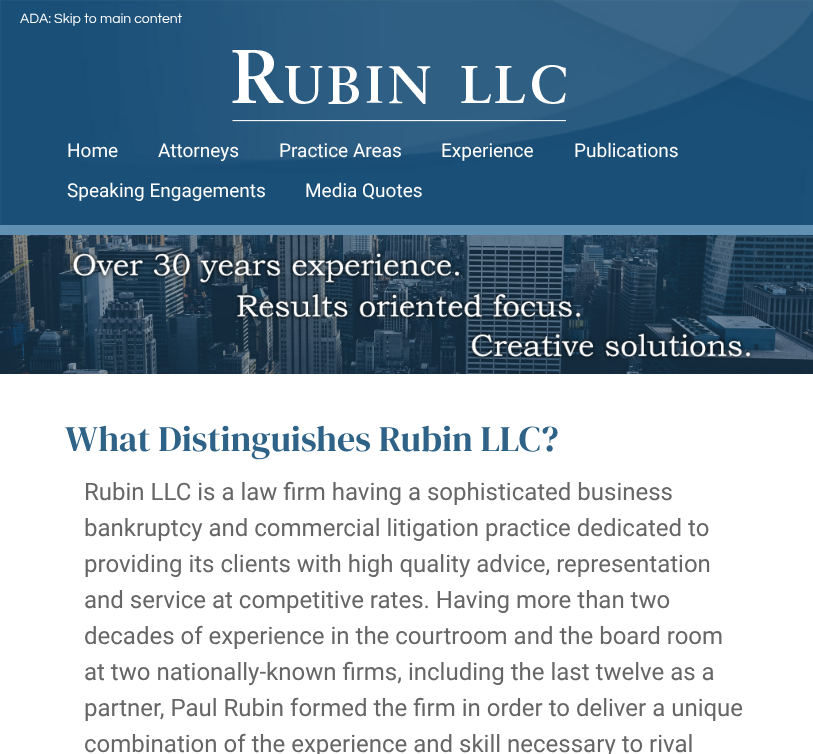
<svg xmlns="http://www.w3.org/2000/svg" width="813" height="754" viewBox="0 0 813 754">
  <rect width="100%" height="100%" fill="#fff"/>
  <path d="M0 225h813v10H0z" fill="#6091b3"/>
  <image x="0" y="0" width="813" height="225" href="img/1.png"/>
  <image x="232" y="50" width="334" height="72" href="img/2.png"/>
  <image x="0" y="235" width="813" height="139" href="img/3.png"/>
  <text x="20" y="23" font-family="Questrial" font-size="14" fill="#fff">ADA: Skip to main content</text>
  <g font-family="Roboto" font-size="19" fill="#fff">
    <text x="67" y="157">Home</text>
    <text x="158" y="157">Attorneys</text>
    <text x="279" y="157">Practice Areas</text>
    <text x="441" y="157">Experience</text>
    <text x="574" y="157">Publications</text>
    <text x="67" y="197">Speaking Engagements</text>
    <text x="305" y="197">Media Quotes</text>
  </g>
  <text x="65" y="451" font-family="DM Serif Display" font-size="36" fill="#2e6286">What Distinguishes Rubin LLC?</text>
  <g font-family="Roboto" font-size="24" fill="#666">
    <text x="84" y="500">Rubin LLC is a law firm having a sophisticated business</text>
    <text x="84" y="536">bankruptcy and commercial litigation practice dedicated to</text>
    <text x="84" y="572">providing its clients with high quality advice, representation</text>
    <text x="84" y="608">and service at competitive rates. Having more than two</text>
    <text x="84" y="644">decades of experience in the courtroom and the board room</text>
    <text x="84" y="680">at two nationally-known firms, including the last twelve as a</text>
    <text x="84" y="716">partner, Paul Rubin formed the firm in order to deliver a unique</text>
    <text x="84" y="752">combination of the experience and skill necessary to rival</text>
  </g>
</svg>
